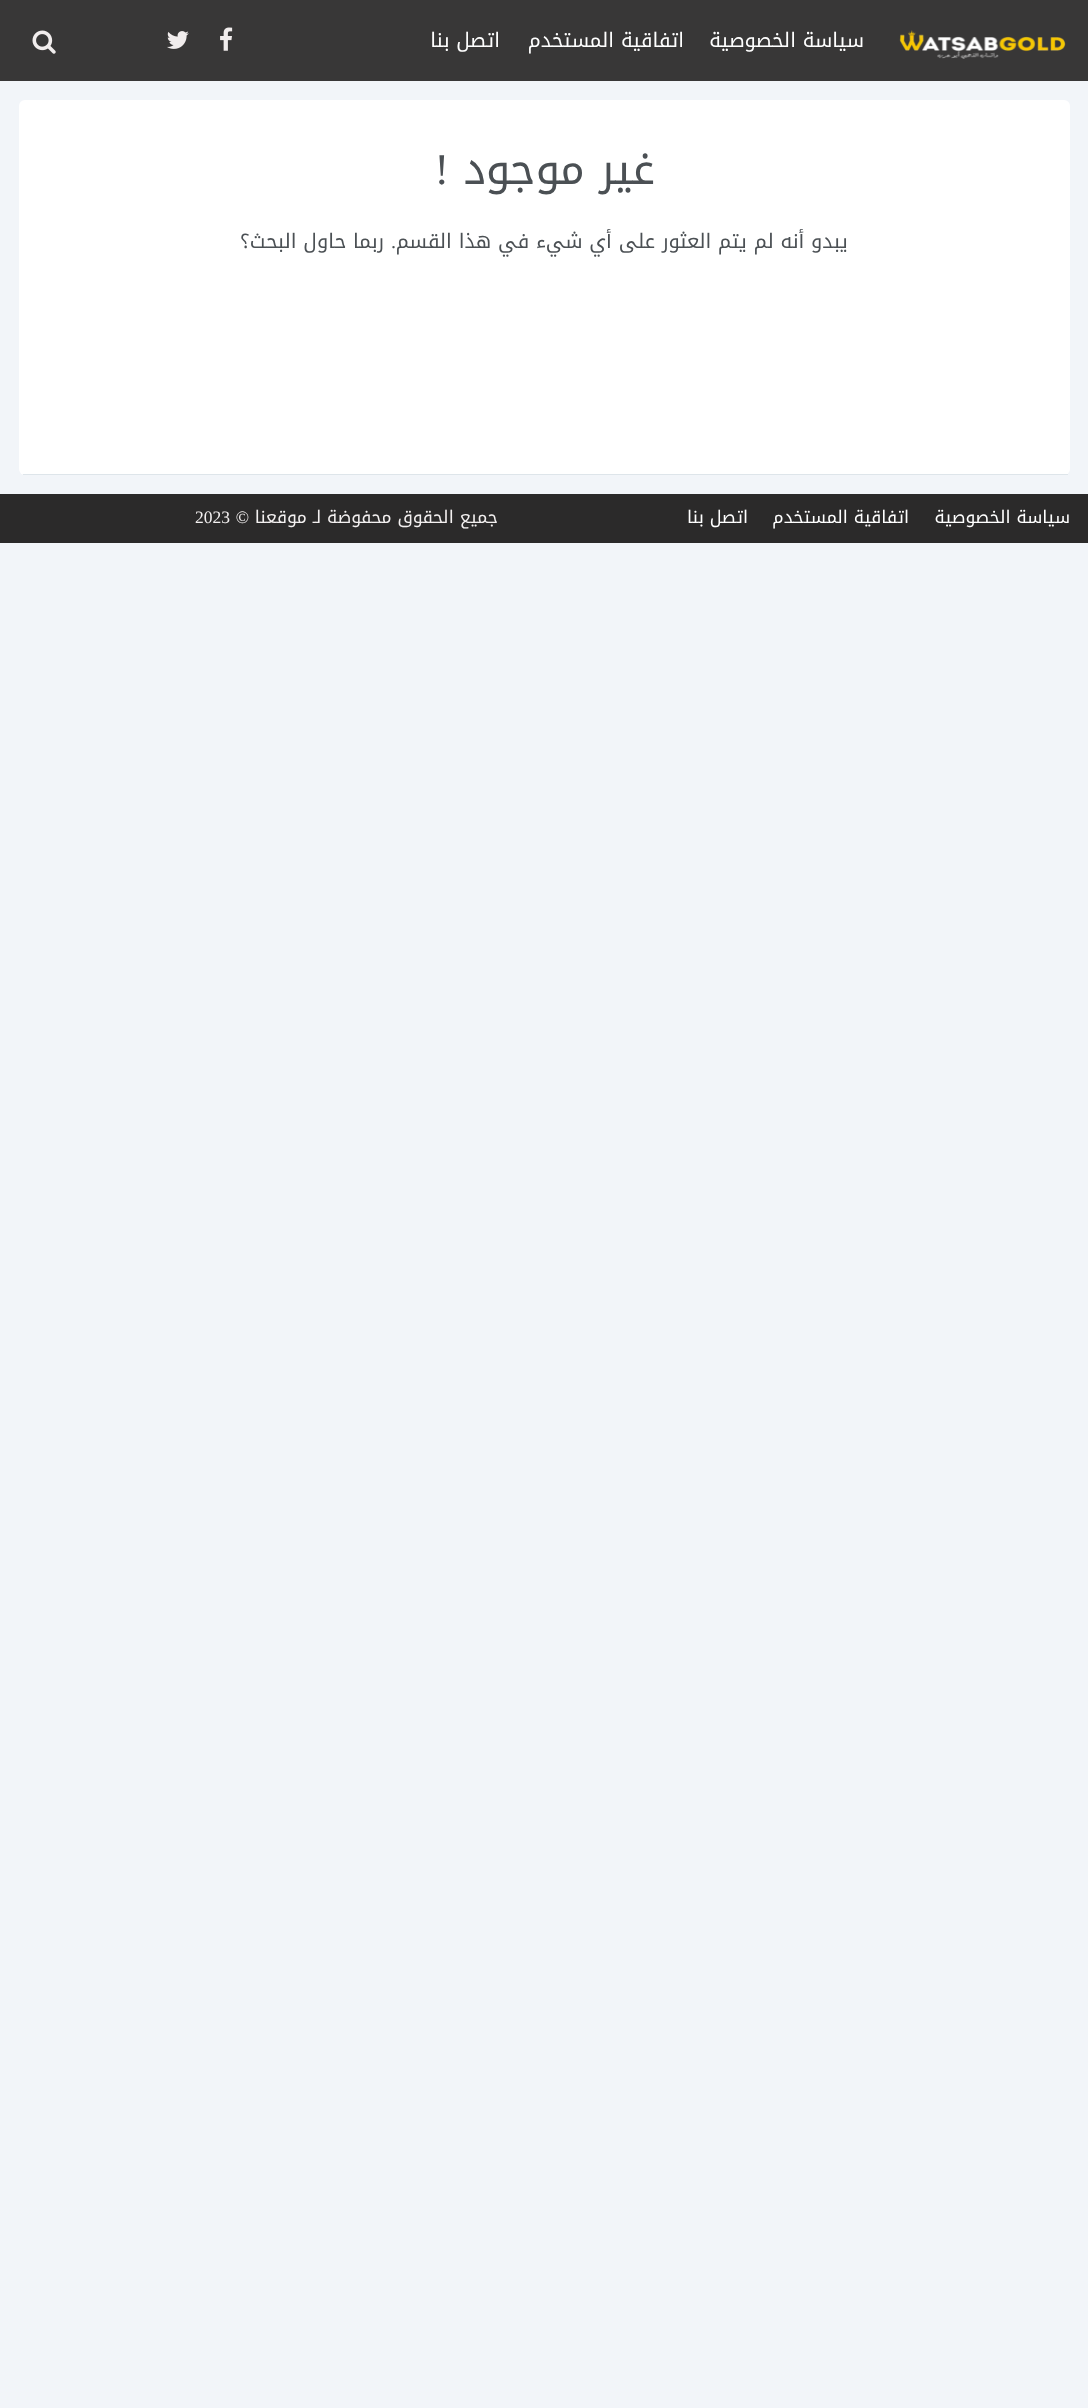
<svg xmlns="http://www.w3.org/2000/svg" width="1088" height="2408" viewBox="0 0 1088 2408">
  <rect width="100%" height="100%" fill="#f2f5f9"/>
  <path d="M0 0h1088v81H0z" fill="#383737"/>
  <image x="899" y="30" width="167" height="29" href="img/1.png"/>
  <image x="220" y="27" width="13" height="24" href="img/2.png"/>
  <image x="167" y="31" width="22" height="18" href="img/3.png"/>
  <image x="32" y="30" width="24" height="24" href="img/4.png"/>
  <rect x="19" y="100" width="1051" height="375" rx="6" fill="#fff"/>
  <path d="M23 474h1045v1H23z" fill="#dee5ea"/>
  <path d="M0 494h1088v49H0z" fill="#2b2a2a"/>
  <g font-family="Noto Kufi Arabic" font-size="20" direction="rtl" fill="#fff">
    <text x="864" y="47">سياسة الخصوصية</text>
    <text x="684" y="47">اتفاقية المستخدم</text>
    <text x="500" y="47">اتصل بنا</text>
  </g>
  <text x="655" y="184" font-family="Noto Kufi Arabic" font-size="43.75" direction="rtl" fill="#4b5054">غير موجود</text>
  <text x="449" y="184" font-family="Liberation Serif" font-size="43.75" direction="rtl" fill="#4b5054">!</text>
  <text x="848" y="248" font-family="Noto Kufi Arabic" font-size="20" direction="rtl" fill="#4b5054">يبدو أنه لم يتم العثور على أي شيء في هذا القسم</text>
  <text x="396" y="248" font-family="Liberation Serif" font-size="20" direction="rtl" fill="#4b5054">.</text>
  <text x="384" y="248" font-family="Noto Kufi Arabic" font-size="20" direction="rtl" fill="#4b5054">ربما حاول البحث؟</text>
  <g font-family="Noto Kufi Arabic" font-size="17.5" direction="rtl" fill="#fff">
    <text x="1070" y="523">سياسة الخصوصية</text>
    <text x="909" y="523">اتفاقية المستخدم</text>
    <text x="748" y="523">اتصل بنا</text>
  </g>
  <text x="498" y="523" font-family="Noto Kufi Arabic" font-size="17.5" direction="rtl" fill="#f3f0f0">جميع الحقوق محفوضة لـ موقعنا</text>
  <text x="249" y="523" font-family="Liberation Serif" font-size="17.5" direction="rtl" fill="#f3f0f0">©</text>
  <text x="195" y="523" font-family="Liberation Serif" font-size="17.5" fill="#f3f0f0">2023</text>
</svg>
